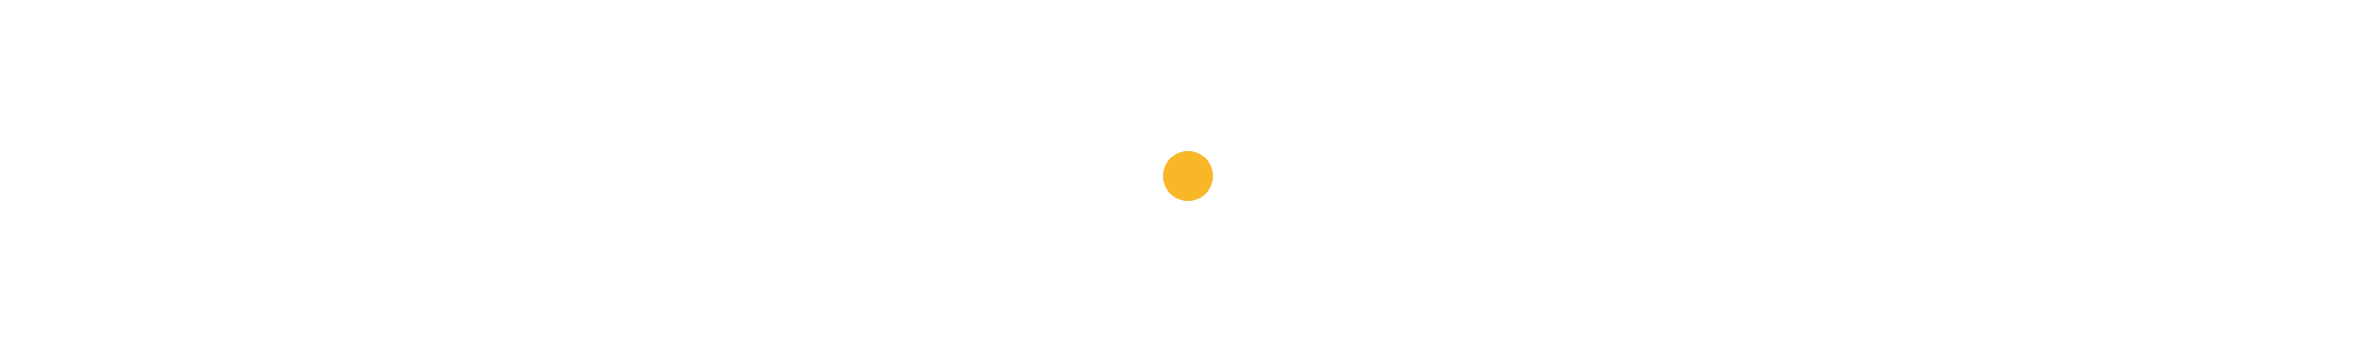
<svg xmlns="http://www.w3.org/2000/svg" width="2374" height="351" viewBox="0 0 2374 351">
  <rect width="100%" height="100%" fill="#fff"/>
  <circle cx="1188" cy="176" r="25" fill="#facb66"/>
  <circle cx="1188" cy="176" r="25" fill="#f6a90099"/>
</svg>
